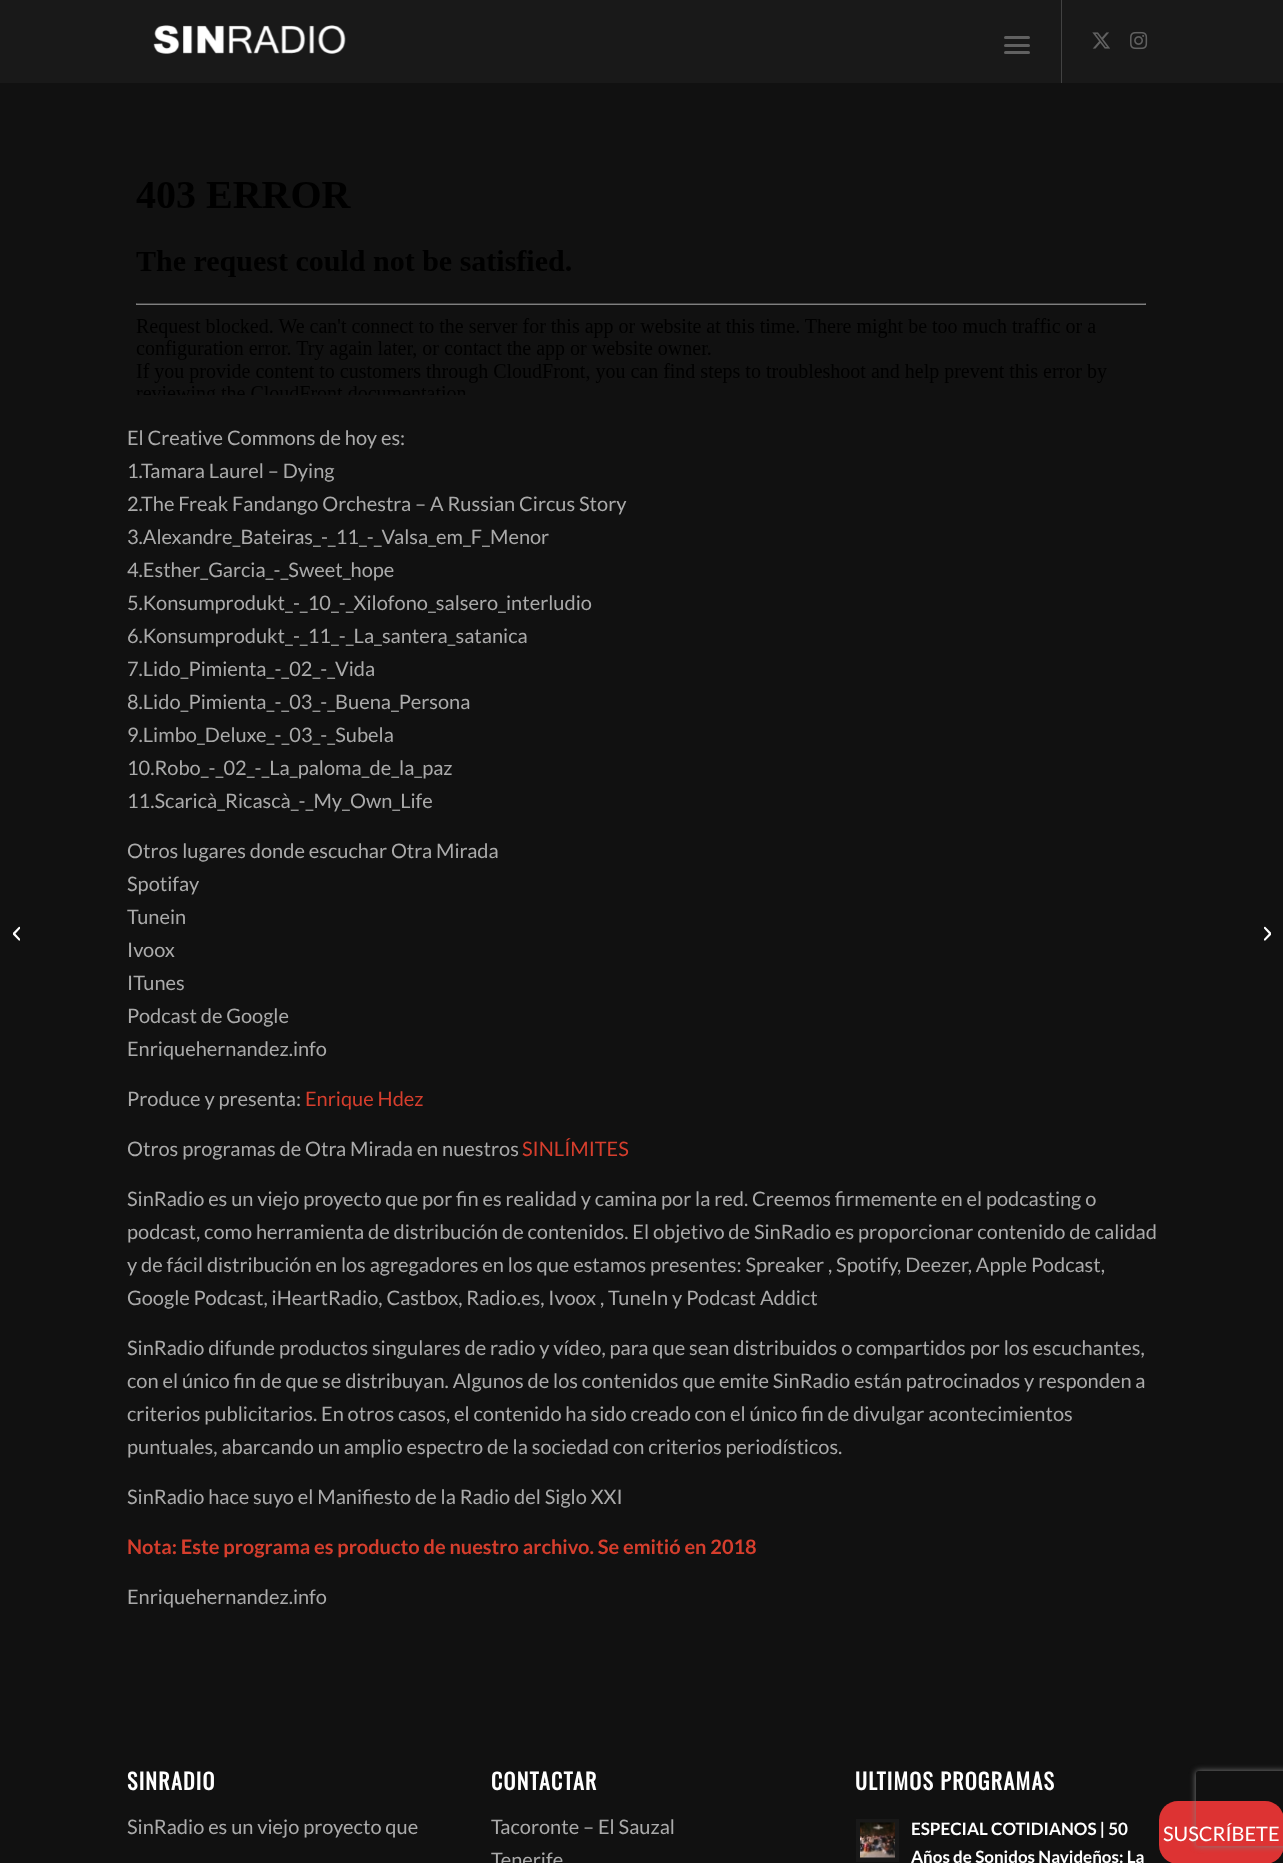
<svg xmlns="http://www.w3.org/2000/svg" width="1283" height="1863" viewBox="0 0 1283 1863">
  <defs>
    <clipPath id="clip1"><path d="M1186 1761H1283V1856H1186ZM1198.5 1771H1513.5C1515 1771 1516 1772 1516 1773.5V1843.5C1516 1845 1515 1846 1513.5 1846H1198.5C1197 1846 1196 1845 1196 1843.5V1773.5C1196 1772 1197 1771 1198.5 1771Z" clip-rule="evenodd"/></clipPath>
  </defs>
  <rect width="100%" height="100%" fill="#191919"/>
  <image x="153" y="25" width="193" height="29" href="img/1.png"/>
  <path d="M1061 0h1v83H1061z" fill="#424242"/>
  <rect x="1004" y="44" width="26" height="3" rx="1.5" fill="#616161"/>
  <rect x="1004" y="36" width="26" height="3" rx="1.5" fill="#616161"/>
  <rect x="1004" y="51" width="26" height="3" rx="1.5" fill="#616161"/>
  <image x="1092" y="32" width="18" height="17" href="img/2.png"/>
  <image x="1130" y="31" width="18" height="19" href="img/3.png"/>
  <path d="M0 83h1283v1780H0z" fill="#111"/>
  <image x="13" y="926" width="7" height="15" href="img/4.png"/>
  <image x="136" y="182" width="1010" height="213" href="img/5.png"/>
  <path d="M856 1819h43v43H856z" fill="#191919"/>
  <image x="860" y="1822" width="35" height="36" href="img/6.png"/>
  <image x="1264" y="926" width="7" height="15" href="img/7.png"/>
  <rect x="1159" y="1801" width="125" height="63" rx="19" fill="#d33"/>
  <g clip-path="url(#clip1)">
    <rect x="1196" y="1771" width="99" height="75" rx="2.5" fill="#808080" filter="blur(3px)"/>
  </g>
  <g font-family="Lato" font-size="20" fill="#aaa">
    <text x="127" y="445">El Creative Commons de hoy es:</text>
    <text x="127" y="478">1.Tamara Laurel – Dying</text>
    <text x="127" y="511">2.The Freak Fandango Orchestra – A Russian Circus Story</text>
    <text x="127" y="544">3.Alexandre_Bateiras_-_11_-_Valsa_em_F_Menor</text>
    <text x="127" y="577">4.Esther_Garcia_-_Sweet_hope</text>
    <text x="127" y="610">5.Konsumprodukt_-_10_-_Xilofono_salsero_interludio</text>
    <text x="127" y="643">6.Konsumprodukt_-_11_-_La_santera_satanica</text>
    <text x="127" y="676">7.Lido_Pimienta_-_02_-_Vida</text>
    <text x="127" y="709">8.Lido_Pimienta_-_03_-_Buena_Persona</text>
    <text x="127" y="742">9.Limbo_Deluxe_-_03_-_Subela</text>
    <text x="127" y="775">10.Robo_-_02_-_La_paloma_de_la_paz</text>
    <text x="127" y="808">11.Scaricà_Ricascà_-_My_Own_Life</text>
    <text x="127" y="858">Otros lugares donde escuchar Otra Mirada</text>
    <text x="127" y="891">Spotifay</text>
    <text x="127" y="924">Tunein</text>
    <text x="127" y="957">Ivoox</text>
    <text x="127" y="990">ITunes</text>
    <text x="127" y="1023">Podcast de Google</text>
    <text x="127" y="1056">Enriquehernandez.info</text>
    <text x="127" y="1106">Produce y presenta:</text>
  </g>
  <text x="305" y="1106" font-family="Lato" font-size="20" fill="#d63e2d">Enrique Hdez</text>
  <text x="127" y="1156" font-family="Lato" font-size="20" fill="#aaa">Otros programas de Otra Mirada en nuestros</text>
  <text x="522" y="1156" font-family="Lato" font-size="20" fill="#d63e2d">SINLÍMITES</text>
  <g font-family="Lato" font-size="20" fill="#aaa">
    <text x="127" y="1206">SinRadio es un viejo proyecto que por fin es realidad y camina por la red. Creemos firmemente en el podcasting o</text>
    <text x="127" y="1239">podcast, como herramienta de distribución de contenidos. El objetivo de SinRadio es proporcionar contenido de calidad</text>
    <text x="127" y="1272">y de fácil distribución en los agregadores en los que estamos presentes: Spreaker , Spotify, Deezer, Apple Podcast,</text>
    <text x="127" y="1305">Google Podcast, iHeartRadio, Castbox, Radio.es, Ivoox , TuneIn y Podcast Addict</text>
    <text x="127" y="1355">SinRadio difunde productos singulares de radio y vídeo, para que sean distribuidos o compartidos por los escuchantes,</text>
    <text x="127" y="1388">con el único fin de que se distribuyan. Algunos de los contenidos que emite SinRadio están patrocinados y responden a</text>
    <text x="127" y="1421">criterios publicitarios. En otros casos, el contenido ha sido creado con el único fin de divulgar acontecimientos</text>
    <text x="127" y="1454">puntuales, abarcando un amplio espectro de la sociedad con criterios periodísticos.</text>
    <text x="127" y="1504">SinRadio hace suyo el Manifiesto de la Radio del Siglo XXI</text>
  </g>
  <text x="127" y="1554" font-family="Lato" font-size="20" font-weight="bold" fill="#d63e2d">Nota: Este programa es producto de nuestro archivo. Se emitió en 2018</text>
  <text x="127" y="1604" font-family="Lato" font-size="20" fill="#aaa">Enriquehernandez.info</text>
  <text x="127" y="1790" font-family="Oswald" font-size="22" font-weight="bold" letter-spacing="1.25" fill="#fff">SINRADIO</text>
  <text x="127" y="1834" font-family="Lato" font-size="20" fill="#aaa">SinRadio es un viejo proyecto que</text>
  <text x="491" y="1790" font-family="Oswald" font-size="22" font-weight="bold" letter-spacing="1.25" fill="#fff">CONTACTAR</text>
  <g font-family="Lato" font-size="20" fill="#aaa">
    <text x="491" y="1834">Tacoronte – El Sauzal</text>
    <text x="491" y="1867">Tenerife</text>
  </g>
  <text x="855" y="1790" font-family="Oswald" font-size="22" font-weight="bold" letter-spacing="1.25" fill="#fff">ULTIMOS PROGRAMAS</text>
  <g font-family="Lato" font-size="17" font-weight="bold" fill="#fff">
    <text x="911" y="1835">ESPECIAL COTIDIANOS | 50</text>
    <text x="911" y="1863">Años de Sonidos Navideños: La</text>
  </g>
  <text x="1163" y="1841" font-family="Lato" font-size="20" fill="#fff">SUSCRÍBETE</text>
</svg>
